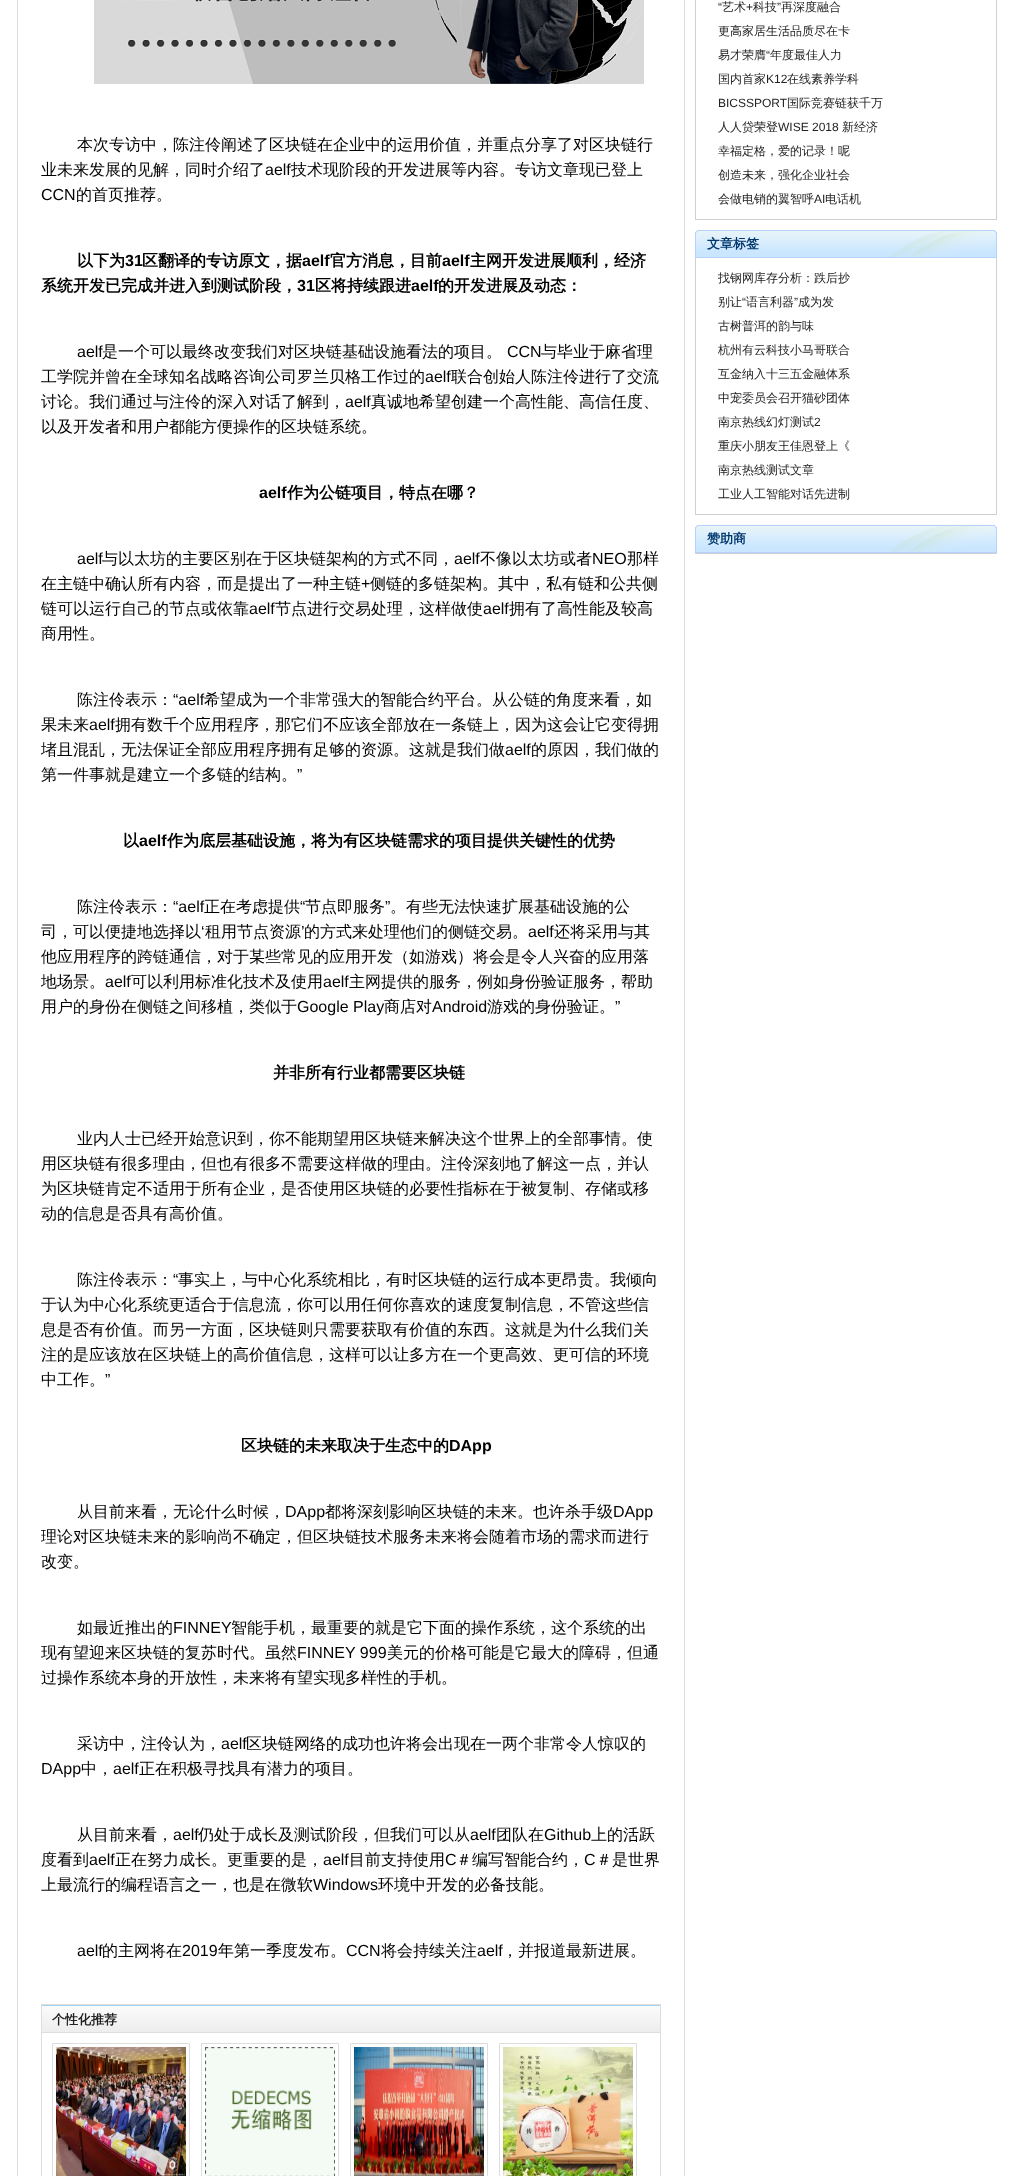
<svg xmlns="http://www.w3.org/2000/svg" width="1014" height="2176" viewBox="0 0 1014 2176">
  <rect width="100%" height="100%" fill="#fff"/>
  <path d="M685-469V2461L684 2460V-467Z" fill="#ddd"/>
  <path d="M17 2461V-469L18-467V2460Z" fill="#ddd"/>
  <image x="94" y="0" width="550" height="84" href="img/1.png"/>
  <path d="M41 2004h620v1H41z" fill="#dfdfdf"/>
  <path d="M41 2005h620v1H41z" fill="#a3d1f0"/>
  <path d="M660 2005h1v171H660z" fill="#ddd"/>
  <path d="M41 2005h1v171H41z" fill="#ddd"/>
  <image x="42" y="2006" width="618" height="26" href="img/2.png"/>
  <path d="M42 2032h618v1H42z" fill="#ddd"/>
  <path d="M52.5 2043.5h137v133H52.5z" fill="none" stroke="#ddd"/>
  <image x="56" y="2047" width="130" height="129" href="img/3.png"/>
  <path d="M201.5 2043.5h137v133H201.5z" fill="none" stroke="#ddd"/>
  <image x="205" y="2047" width="130" height="129" href="img/4.png"/>
  <path d="M350.5 2043.5h137v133H350.5z" fill="none" stroke="#ddd"/>
  <image x="354" y="2047" width="130" height="129" href="img/5.png"/>
  <path d="M499.5 2043.5h137v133H499.5z" fill="none" stroke="#ddd"/>
  <image x="503" y="2047" width="130" height="129" href="img/6.png"/>
  <path d="M996 0h1v220H996z" fill="#d0d0d0"/>
  <path d="M695 219h302v1H695z" fill="#d0d0d0"/>
  <path d="M695 0h1v220H695z" fill="#d0d0d0"/>
  <image x="695" y="230" width="302" height="28" href="img/7.png"/>
  <path d="M996 258h1v257H996z" fill="#d0d0d0"/>
  <path d="M695 514h302v1H695z" fill="#d0d0d0"/>
  <path d="M695 258h1v257H695z" fill="#d0d0d0"/>
  <image x="695" y="525" width="302" height="28" href="img/7.png"/>
  <path d="M695 553h302v1H695z" fill="#d0d0d0"/>
  <g font-family="WenQuanYi Zen Hei" font-size="16" font-weight="500" fill="#000">
    <text x="77" y="150">本次专访中，陈注伶阐述了区块链在企业中的运用价值，并重点分享了对区块链行</text>
    <text x="41" y="175">业未来发展的见解，同时介绍了</text>
  </g>
  <text x="265" y="175" font-family="Liberation Sans" font-size="16" fill="#000">aelf</text>
  <text x="291" y="175" font-family="WenQuanYi Zen Hei" font-size="16" font-weight="500" fill="#000">技术现阶段的开发进展等内容。专访文章现已登上</text>
  <text x="41" y="200" font-family="Liberation Sans" font-size="16" fill="#000">CCN</text>
  <text x="76" y="200" font-family="WenQuanYi Zen Hei" font-size="16" font-weight="500" fill="#000">的首页推荐。</text>
  <text x="77" y="266" font-family="WenQuanYi Zen Hei" font-size="16" font-weight="bold" fill="#000">以下为</text>
  <text x="125" y="266" font-family="Liberation Sans" font-size="16" font-weight="bold" fill="#000">31</text>
  <text x="142" y="266" font-family="WenQuanYi Zen Hei" font-size="16" font-weight="bold" fill="#000">区翻译的专访原文，据</text>
  <text x="302" y="266" font-family="Liberation Sans" font-size="16" font-weight="bold" fill="#000">aelf</text>
  <text x="330" y="266" font-family="WenQuanYi Zen Hei" font-size="16" font-weight="bold" fill="#000">官方消息，目前</text>
  <text x="442" y="266" font-family="Liberation Sans" font-size="16" font-weight="bold" fill="#000">aelf</text>
  <g font-family="WenQuanYi Zen Hei" font-size="16" font-weight="bold" fill="#000">
    <text x="470" y="266">主网开发进展顺利，经济</text>
    <text x="41" y="291">系统开发已完成并进入到测试阶段，</text>
  </g>
  <text x="297" y="291" font-family="Liberation Sans" font-size="16" font-weight="bold" fill="#000">31</text>
  <text x="315" y="291" font-family="WenQuanYi Zen Hei" font-size="16" font-weight="bold" fill="#000">区将持续跟进</text>
  <text x="411" y="291" font-family="Liberation Sans" font-size="16" font-weight="bold" fill="#000">aelf</text>
  <text x="438" y="291" font-family="WenQuanYi Zen Hei" font-size="16" font-weight="bold" fill="#000">的开发进展及动态：</text>
  <text x="77" y="357" font-family="Liberation Sans" font-size="16" fill="#000">aelf</text>
  <text x="102" y="357" font-family="WenQuanYi Zen Hei" font-size="16" font-weight="500" fill="#000">是一个可以最终改变我们对区块链基础设施看法的项目。</text>
  <text x="507" y="357" font-family="Liberation Sans" font-size="16" fill="#000">CCN</text>
  <g font-family="WenQuanYi Zen Hei" font-size="16" font-weight="500" fill="#000">
    <text x="541" y="357">与毕业于麻省理</text>
    <text x="41" y="382">工学院并曾在全球知名战略咨询公司罗兰贝格工作过的</text>
  </g>
  <text x="425" y="382" font-family="Liberation Sans" font-size="16" fill="#000">aelf</text>
  <g font-family="WenQuanYi Zen Hei" font-size="16" font-weight="500" fill="#000">
    <text x="451" y="382">联合创始人陈注伶进行了交流</text>
    <text x="41" y="407">讨论。我们通过与注伶的深入对话了解到，</text>
  </g>
  <text x="345" y="407" font-family="Liberation Sans" font-size="16" fill="#000">aelf</text>
  <g font-family="WenQuanYi Zen Hei" font-size="16" font-weight="500" fill="#000">
    <text x="371" y="407">真诚地希望创建一个高性能、高信任度、</text>
    <text x="41" y="432">以及开发者和用户都能方便操作的区块链系统。</text>
  </g>
  <text x="259" y="498" font-family="Liberation Sans" font-size="16" font-weight="bold" fill="#000">aelf</text>
  <text x="287" y="498" font-family="WenQuanYi Zen Hei" font-size="16" font-weight="bold" fill="#000">作为公链项目，特点在哪？</text>
  <text x="77" y="564" font-family="Liberation Sans" font-size="16" fill="#000">aelf</text>
  <text x="102" y="564" font-family="WenQuanYi Zen Hei" font-size="16" font-weight="500" fill="#000">与以太坊的主要区别在于区块链架构的方式不同，</text>
  <text x="454" y="564" font-family="Liberation Sans" font-size="16" fill="#000">aelf</text>
  <text x="480" y="564" font-family="WenQuanYi Zen Hei" font-size="16" font-weight="500" fill="#000">不像以太坊或者</text>
  <text x="592" y="564" font-family="Liberation Sans" font-size="16" fill="#000">NEO</text>
  <g font-family="WenQuanYi Zen Hei" font-size="16" font-weight="500" fill="#000">
    <text x="627" y="564">那样</text>
    <text x="41" y="589">在主链中确认所有内容，而是提出了一种主链</text>
  </g>
  <text x="361" y="589" font-family="Liberation Sans" font-size="16" fill="#000">+</text>
  <g font-family="WenQuanYi Zen Hei" font-size="16" font-weight="500" fill="#000">
    <text x="370" y="589">侧链的多链架构。其中，私有链和公共侧</text>
    <text x="41" y="614">链可以运行自己的节点或依靠</text>
  </g>
  <text x="249" y="614" font-family="Liberation Sans" font-size="16" fill="#000">aelf</text>
  <text x="275" y="614" font-family="WenQuanYi Zen Hei" font-size="16" font-weight="500" fill="#000">节点进行交易处理，这样做使</text>
  <text x="483" y="614" font-family="Liberation Sans" font-size="16" fill="#000">aelf</text>
  <g font-family="WenQuanYi Zen Hei" font-size="16" font-weight="500" fill="#000">
    <text x="509" y="614">拥有了高性能及较高</text>
    <text x="41" y="639">商用性。</text>
    <text x="77" y="705">陈注伶表示：</text>
  </g>
  <text x="173" y="705" font-family="Liberation Sans" font-size="16" fill="#000">“aelf</text>
  <g font-family="WenQuanYi Zen Hei" font-size="16" font-weight="500" fill="#000">
    <text x="204" y="705">希望成为一个非常强大的智能合约平台。从公链的角度来看，如</text>
    <text x="41" y="730">果未来</text>
  </g>
  <text x="89" y="730" font-family="Liberation Sans" font-size="16" fill="#000">aelf</text>
  <g font-family="WenQuanYi Zen Hei" font-size="16" font-weight="500" fill="#000">
    <text x="115" y="730">拥有数千个应用程序，那它们不应该全部放在一条链上，因为这会让它变得拥</text>
    <text x="41" y="755">堵且混乱，无法保证全部应用程序拥有足够的资源。这就是我们做</text>
  </g>
  <text x="505" y="755" font-family="Liberation Sans" font-size="16" fill="#000">aelf</text>
  <g font-family="WenQuanYi Zen Hei" font-size="16" font-weight="500" fill="#000">
    <text x="531" y="755">的原因，我们做的</text>
    <text x="41" y="780">第一件事就是建立一个多链的结构。</text>
  </g>
  <text x="297" y="780" font-family="Liberation Sans" font-size="16" fill="#000">”</text>
  <text x="123" y="846" font-family="WenQuanYi Zen Hei" font-size="16" font-weight="bold" fill="#000">以</text>
  <text x="139" y="846" font-family="Liberation Sans" font-size="16" font-weight="bold" fill="#000">aelf</text>
  <text x="167" y="846" font-family="WenQuanYi Zen Hei" font-size="16" font-weight="bold" fill="#000">作为底层基础设施，将为有区块链需求的项目提供关键性的优势</text>
  <text x="77" y="912" font-family="WenQuanYi Zen Hei" font-size="16" font-weight="500" fill="#000">陈注伶表示：</text>
  <text x="173" y="912" font-family="Liberation Sans" font-size="16" fill="#000">“aelf</text>
  <text x="204" y="912" font-family="WenQuanYi Zen Hei" font-size="16" font-weight="500" fill="#000">正在考虑提供</text>
  <text x="300" y="912" font-family="Liberation Sans" font-size="16" fill="#000">“</text>
  <text x="305" y="912" font-family="WenQuanYi Zen Hei" font-size="16" font-weight="500" fill="#000">节点即服务</text>
  <text x="385" y="912" font-family="Liberation Sans" font-size="16" fill="#000">”</text>
  <g font-family="WenQuanYi Zen Hei" font-size="16" font-weight="500" fill="#000">
    <text x="390" y="912">。有些无法快速扩展基础设施的公</text>
    <text x="41" y="937">司，可以便捷地选择以</text>
  </g>
  <text x="201" y="937" font-family="Liberation Sans" font-size="16" fill="#000">‘</text>
  <text x="205" y="937" font-family="WenQuanYi Zen Hei" font-size="16" font-weight="500" fill="#000">租用节点资源</text>
  <text x="301" y="937" font-family="Liberation Sans" font-size="16" fill="#000">’</text>
  <text x="304" y="937" font-family="WenQuanYi Zen Hei" font-size="16" font-weight="500" fill="#000">的方式来处理他们的侧链交易。</text>
  <text x="528" y="937" font-family="Liberation Sans" font-size="16" fill="#000">aelf</text>
  <g font-family="WenQuanYi Zen Hei" font-size="16" font-weight="500" fill="#000">
    <text x="554" y="937">还将采用与其</text>
    <text x="41" y="962">他应用程序的跨链通信，对于某些常见的应用开发（如游戏）将会是令人兴奋的应用落</text>
    <text x="41" y="987">地场景。</text>
  </g>
  <text x="105" y="987" font-family="Liberation Sans" font-size="16" fill="#000">aelf</text>
  <text x="131" y="987" font-family="WenQuanYi Zen Hei" font-size="16" font-weight="500" fill="#000">可以利用标准化技术及使用</text>
  <text x="323" y="987" font-family="Liberation Sans" font-size="16" fill="#000">aelf</text>
  <g font-family="WenQuanYi Zen Hei" font-size="16" font-weight="500" fill="#000">
    <text x="349" y="987">主网提供的服务，例如身份验证服务，帮助</text>
    <text x="41" y="1012">用户的身份在侧链之间移植，类似于</text>
  </g>
  <text x="297" y="1012" font-family="Liberation Sans" font-size="16" fill="#000">Google Play</text>
  <text x="384" y="1012" font-family="WenQuanYi Zen Hei" font-size="16" font-weight="500" fill="#000">商店对</text>
  <text x="432" y="1012" font-family="Liberation Sans" font-size="16" fill="#000">Android</text>
  <text x="487" y="1012" font-family="WenQuanYi Zen Hei" font-size="16" font-weight="500" fill="#000">游戏的身份验证。</text>
  <text x="615" y="1012" font-family="Liberation Sans" font-size="16" fill="#000">”</text>
  <text x="273" y="1078" font-family="WenQuanYi Zen Hei" font-size="16" font-weight="bold" fill="#000">并非所有行业都需要区块链</text>
  <g font-family="WenQuanYi Zen Hei" font-size="16" font-weight="500" fill="#000">
    <text x="77" y="1144">业内人士已经开始意识到，你不能期望用区块链来解决这个世界上的全部事情。使</text>
    <text x="41" y="1169">用区块链有很多理由，但也有很多不需要这样做的理由。注伶深刻地了解这一点，并认</text>
    <text x="41" y="1194">为区块链肯定不适用于所有企业，是否使用区块链的必要性指标在于被复制、存储或移</text>
    <text x="41" y="1219">动的信息是否具有高价值。</text>
    <text x="77" y="1285">陈注伶表示：</text>
  </g>
  <text x="173" y="1285" font-family="Liberation Sans" font-size="16" fill="#000">“</text>
  <g font-family="WenQuanYi Zen Hei" font-size="16" font-weight="500" fill="#000">
    <text x="178" y="1285">事实上，与中心化系统相比，有时区块链的运行成本更昂贵。我倾向</text>
    <text x="41" y="1310">于认为中心化系统更适合于信息流，你可以用任何你喜欢的速度复制信息，不管这些信</text>
    <text x="41" y="1335">息是否有价值。而另一方面，区块链则只需要获取有价值的东西。这就是为什么我们关</text>
    <text x="41" y="1360">注的是应该放在区块链上的高价值信息，这样可以让多方在一个更高效、更可信的环境</text>
    <text x="41" y="1385">中工作。</text>
  </g>
  <text x="105" y="1385" font-family="Liberation Sans" font-size="16" fill="#000">”</text>
  <text x="241" y="1451" font-family="WenQuanYi Zen Hei" font-size="16" font-weight="bold" fill="#000">区块链的未来取决于生态中的</text>
  <text x="449" y="1451" font-family="Liberation Sans" font-size="16" font-weight="bold" fill="#000">DApp</text>
  <text x="77" y="1517" font-family="WenQuanYi Zen Hei" font-size="16" font-weight="500" fill="#000">从目前来看，无论什么时候，</text>
  <text x="285" y="1517" font-family="Liberation Sans" font-size="16" fill="#000">DApp</text>
  <text x="325" y="1517" font-family="WenQuanYi Zen Hei" font-size="16" font-weight="500" fill="#000">都将深刻影响区块链的未来。也许杀手级</text>
  <text x="613" y="1517" font-family="Liberation Sans" font-size="16" fill="#000">DApp</text>
  <g font-family="WenQuanYi Zen Hei" font-size="16" font-weight="500" fill="#000">
    <text x="41" y="1542">理论对区块链未来的影响尚不确定，但区块链技术服务未来将会随着市场的需求而进行</text>
    <text x="41" y="1567">改变。</text>
    <text x="77" y="1633">如最近推出的</text>
  </g>
  <text x="173" y="1633" font-family="Liberation Sans" font-size="16" fill="#000">FINNEY</text>
  <g font-family="WenQuanYi Zen Hei" font-size="16" font-weight="500" fill="#000">
    <text x="231" y="1633">智能手机，最重要的就是它下面的操作系统，这个系统的出</text>
    <text x="41" y="1658">现有望迎来区块链的复苏时代。虽然</text>
  </g>
  <text x="297" y="1658" font-family="Liberation Sans" font-size="16" fill="#000">FINNEY 999</text>
  <g font-family="WenQuanYi Zen Hei" font-size="16" font-weight="500" fill="#000">
    <text x="387" y="1658">美元的价格可能是它最大的障碍，但通</text>
    <text x="41" y="1683">过操作系统本身的开放性，未来将有望实现多样性的手机。</text>
    <text x="77" y="1749">采访中，注伶认为，</text>
  </g>
  <text x="221" y="1749" font-family="Liberation Sans" font-size="16" fill="#000">aelf</text>
  <text x="246" y="1749" font-family="WenQuanYi Zen Hei" font-size="16" font-weight="500" fill="#000">区块链网络的成功也许将会出现在一两个非常令人惊叹的</text>
  <text x="41" y="1774" font-family="Liberation Sans" font-size="16" fill="#000">DApp</text>
  <text x="81" y="1774" font-family="WenQuanYi Zen Hei" font-size="16" font-weight="500" fill="#000">中，</text>
  <text x="113" y="1774" font-family="Liberation Sans" font-size="16" fill="#000">aelf</text>
  <g font-family="WenQuanYi Zen Hei" font-size="16" font-weight="500" fill="#000">
    <text x="139" y="1774">正在积极寻找具有潜力的项目。</text>
    <text x="77" y="1840">从目前来看，</text>
  </g>
  <text x="173" y="1840" font-family="Liberation Sans" font-size="16" fill="#000">aelf</text>
  <text x="198" y="1840" font-family="WenQuanYi Zen Hei" font-size="16" font-weight="500" fill="#000">仍处于成长及测试阶段，但我们可以从</text>
  <text x="470" y="1840" font-family="Liberation Sans" font-size="16" fill="#000">aelf</text>
  <text x="496" y="1840" font-family="WenQuanYi Zen Hei" font-size="16" font-weight="500" fill="#000">团队在</text>
  <text x="544" y="1840" font-family="Liberation Sans" font-size="16" fill="#000">Github</text>
  <g font-family="WenQuanYi Zen Hei" font-size="16" font-weight="500" fill="#000">
    <text x="591" y="1840">上的活跃</text>
    <text x="41" y="1865">度看到</text>
  </g>
  <text x="89" y="1865" font-family="Liberation Sans" font-size="16" fill="#000">aelf</text>
  <text x="115" y="1865" font-family="WenQuanYi Zen Hei" font-size="16" font-weight="500" fill="#000">正在努力成长。更重要的是，</text>
  <text x="323" y="1865" font-family="Liberation Sans" font-size="16" fill="#000">aelf</text>
  <text x="349" y="1865" font-family="WenQuanYi Zen Hei" font-size="16" font-weight="500" fill="#000">目前支持使用</text>
  <text x="445" y="1865" font-family="Liberation Sans" font-size="16" fill="#000">C</text>
  <text x="456" y="1865" font-family="WenQuanYi Zen Hei" font-size="16" font-weight="500" fill="#000">＃编写智能合约，</text>
  <text x="584" y="1865" font-family="Liberation Sans" font-size="16" fill="#000">C</text>
  <g font-family="WenQuanYi Zen Hei" font-size="16" font-weight="500" fill="#000">
    <text x="596" y="1865">＃是世界</text>
    <text x="41" y="1890">上最流行的编程语言之一，也是在微软</text>
  </g>
  <text x="313" y="1890" font-family="Liberation Sans" font-size="16" fill="#000">Windows</text>
  <text x="378" y="1890" font-family="WenQuanYi Zen Hei" font-size="16" font-weight="500" fill="#000">环境中开发的必备技能。</text>
  <text x="77" y="1956" font-family="Liberation Sans" font-size="16" fill="#000">aelf</text>
  <text x="102" y="1956" font-family="WenQuanYi Zen Hei" font-size="16" font-weight="500" fill="#000">的主网将在</text>
  <text x="182" y="1956" font-family="Liberation Sans" font-size="16" fill="#000">2019</text>
  <text x="218" y="1956" font-family="WenQuanYi Zen Hei" font-size="16" font-weight="500" fill="#000">年第一季度发布。</text>
  <text x="346" y="1956" font-family="Liberation Sans" font-size="16" fill="#000">CCN</text>
  <text x="381" y="1956" font-family="WenQuanYi Zen Hei" font-size="16" font-weight="500" fill="#000">将会持续关注</text>
  <text x="477" y="1956" font-family="Liberation Sans" font-size="16" fill="#000">aelf</text>
  <text x="502" y="1956" font-family="WenQuanYi Zen Hei" font-size="16" font-weight="500" fill="#000">，并报道最新进展。</text>
  <text x="52" y="2024" font-family="WenQuanYi Zen Hei" font-size="13" font-weight="bold" fill="#222">个性化推荐</text>
  <text x="718" y="11" font-family="Liberation Sans" font-size="12" fill="#222">“</text>
  <text x="722" y="11" font-family="WenQuanYi Zen Hei" font-size="12" font-weight="500" fill="#222">艺术</text>
  <text x="746" y="11" font-family="Liberation Sans" font-size="12" fill="#222">+</text>
  <text x="753" y="11" font-family="WenQuanYi Zen Hei" font-size="12" font-weight="500" fill="#222">科技</text>
  <text x="777" y="11" font-family="Liberation Sans" font-size="12" fill="#222">”</text>
  <g font-family="WenQuanYi Zen Hei" font-size="12" font-weight="500" fill="#222">
    <text x="781" y="11">再深度融合</text>
    <text x="718" y="35">更高家居生活品质尽在卡</text>
    <text x="718" y="59">易才荣膺</text>
  </g>
  <text x="766" y="59" font-family="Liberation Sans" font-size="12" fill="#222">“</text>
  <g font-family="WenQuanYi Zen Hei" font-size="12" font-weight="500" fill="#222">
    <text x="770" y="59">年度最佳人力</text>
    <text x="718" y="83">国内首家</text>
  </g>
  <text x="766" y="83" font-family="Liberation Sans" font-size="12" fill="#222">K12</text>
  <text x="787" y="83" font-family="WenQuanYi Zen Hei" font-size="12" font-weight="500" fill="#222">在线素养学科</text>
  <text x="718" y="107" font-family="Liberation Sans" font-size="12" fill="#222">BICSSPORT</text>
  <g font-family="WenQuanYi Zen Hei" font-size="12" font-weight="500" fill="#222">
    <text x="787" y="107">国际竞赛链获千万</text>
    <text x="718" y="131">人人贷荣登</text>
  </g>
  <text x="778" y="131" font-family="Liberation Sans" font-size="12" fill="#222">WISE 2018</text>
  <g font-family="WenQuanYi Zen Hei" font-size="12" font-weight="500" fill="#222">
    <text x="842" y="131">新经济</text>
    <text x="718" y="155">幸福定格，爱的记录！呢</text>
    <text x="718" y="179">创造未来，强化企业社会</text>
    <text x="718" y="203">会做电销的翼智呼</text>
  </g>
  <text x="814" y="203" font-family="Liberation Sans" font-size="12" fill="#222">AI</text>
  <text x="825" y="203" font-family="WenQuanYi Zen Hei" font-size="12" font-weight="500" fill="#222">电话机</text>
  <text x="707" y="248" font-family="WenQuanYi Zen Hei" font-size="13" font-weight="bold" fill="#00376d">文章标签</text>
  <g font-family="WenQuanYi Zen Hei" font-size="12" font-weight="500" fill="#222">
    <text x="718" y="282">找钢网库存分析：跌后抄</text>
    <text x="718" y="306">别让</text>
  </g>
  <text x="742" y="306" font-family="Liberation Sans" font-size="12" fill="#222">“</text>
  <text x="746" y="306" font-family="WenQuanYi Zen Hei" font-size="12" font-weight="500" fill="#222">语言利器</text>
  <text x="794" y="306" font-family="Liberation Sans" font-size="12" fill="#222">”</text>
  <g font-family="WenQuanYi Zen Hei" font-size="12" font-weight="500" fill="#222">
    <text x="798" y="306">成为发</text>
    <text x="718" y="330">古树普洱的韵与味</text>
    <text x="718" y="354">杭州有云科技小马哥联合</text>
    <text x="718" y="378">互金纳入十三五金融体系</text>
    <text x="718" y="402">中宠委员会召开猫砂团体</text>
    <text x="718" y="426">南京热线幻灯测试</text>
  </g>
  <text x="814" y="426" font-family="Liberation Sans" font-size="12" fill="#222">2</text>
  <g font-family="WenQuanYi Zen Hei" font-size="12" font-weight="500" fill="#222">
    <text x="718" y="450">重庆小朋友王佳恩登上《</text>
    <text x="718" y="474">南京热线测试文章</text>
    <text x="718" y="498">工业人工智能对话先进制</text>
  </g>
  <text x="707" y="543" font-family="WenQuanYi Zen Hei" font-size="13" font-weight="bold" fill="#00376d">赞助商</text>
</svg>
